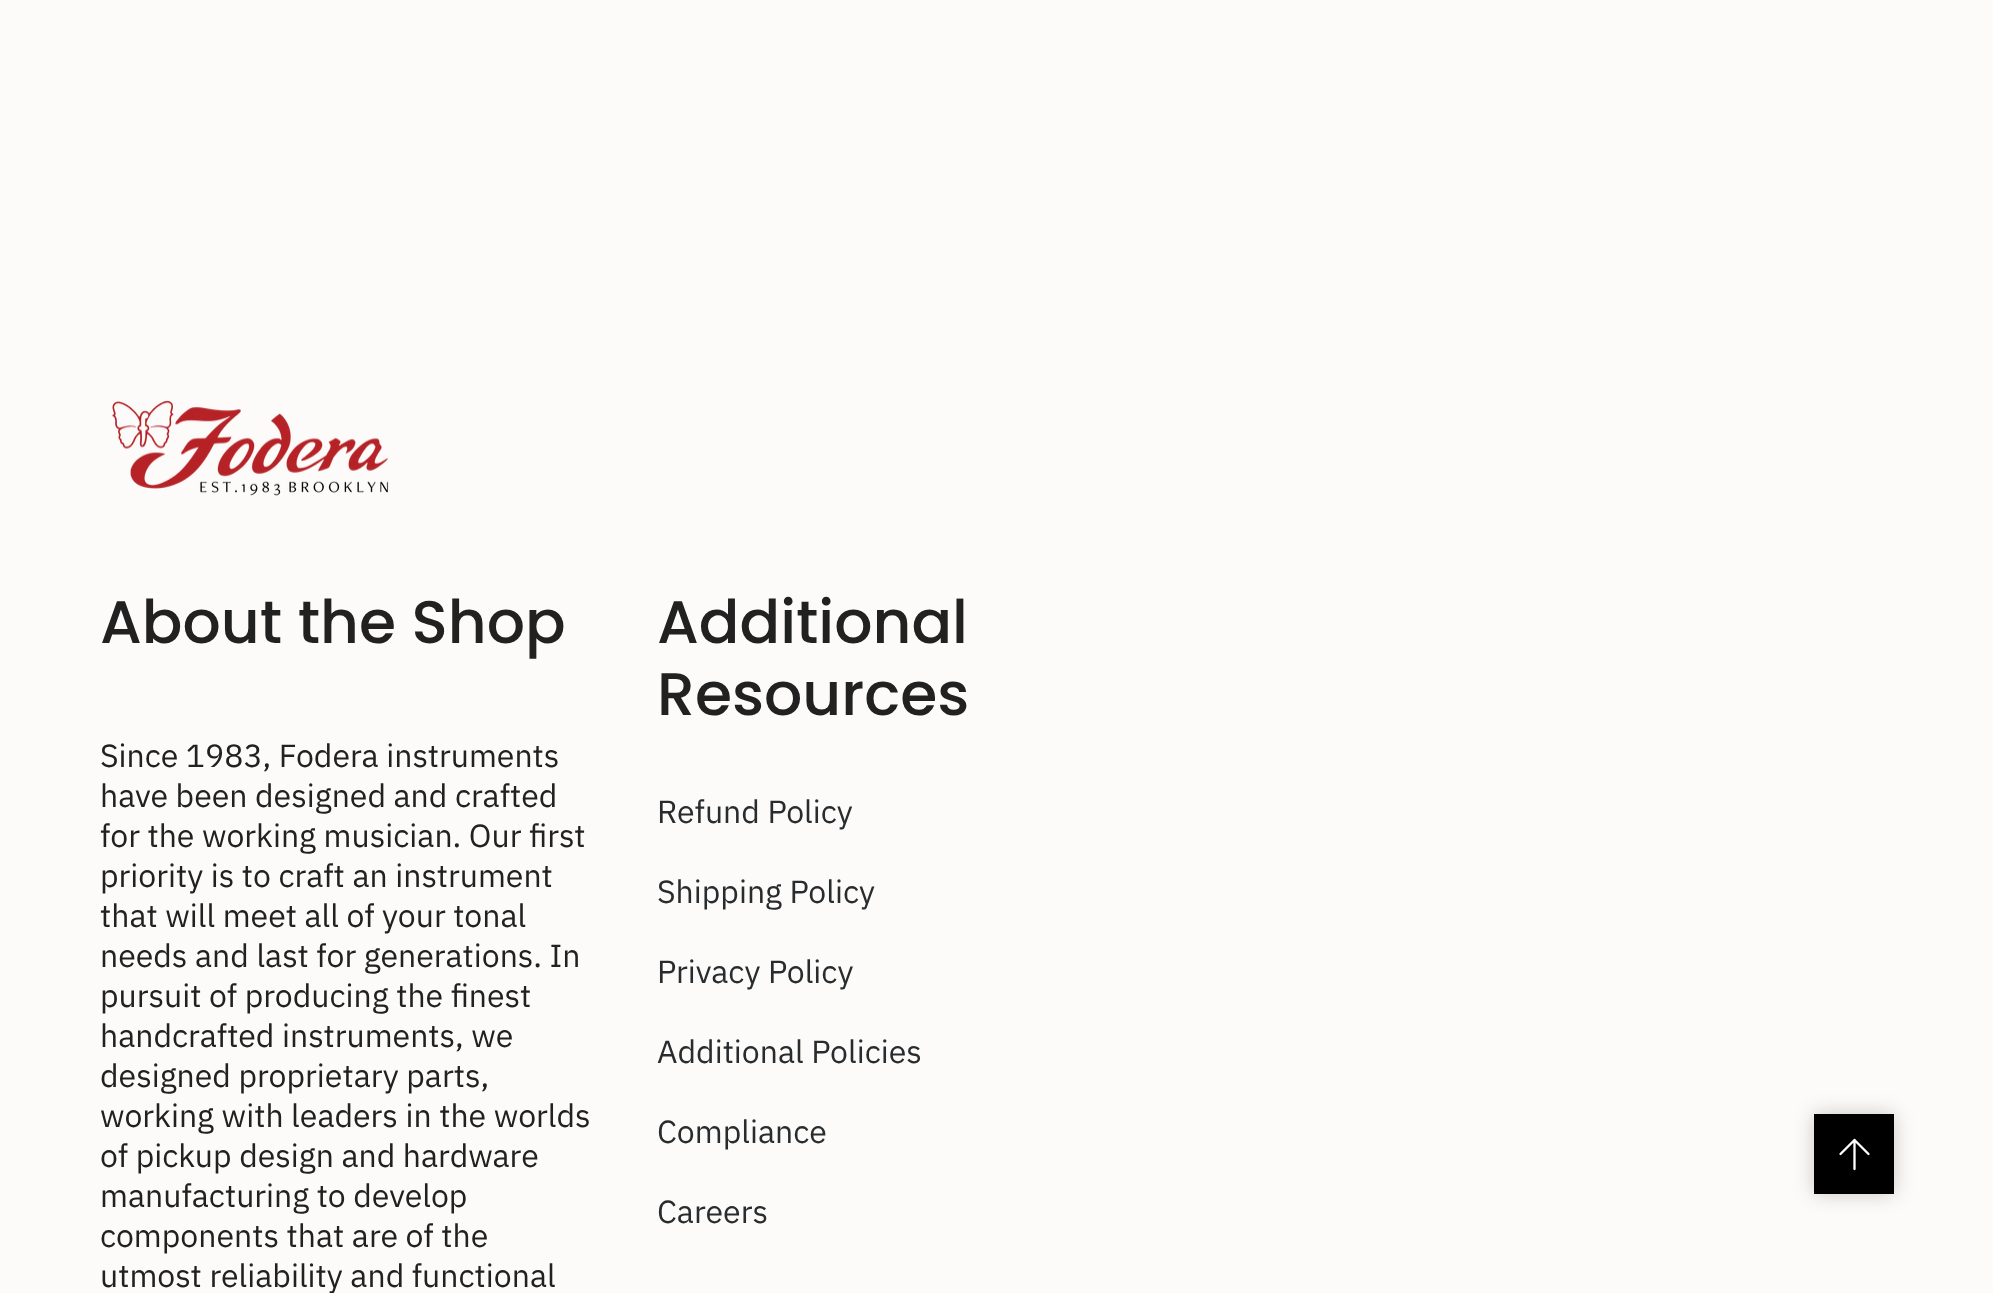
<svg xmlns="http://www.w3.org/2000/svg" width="1993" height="1293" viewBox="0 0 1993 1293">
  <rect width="100%" height="100%" fill="#fcfbf9"/>
  <image x="112" y="400" width="277" height="96" href="img/1.png"/>
  <path d="M1814 1114h80v80H1814z" fill="#00000033" filter="blur(10px)"/>
  <path d="M1814 1114h80v80H1814z" fill="#000"/>
  <path d="M1854.5 1169V1140M1854.5 1140L1868.5 1154M1854.5 1140L1840.5 1154" fill="none" stroke="#fff" stroke-width="2.3" stroke-linecap="round" stroke-linejoin="round"/>
  <text x="100" y="643" font-family="Poppins" font-size="60" font-weight="500" fill="#212121">About the Shop</text>
  <g font-family="IBM Plex Sans" font-size="32" fill="#212121">
    <text x="100" y="767">Since 1983, Fodera instruments</text>
    <text x="100" y="807">have been designed and crafted</text>
    <text x="100" y="847">for the working musician. Our first</text>
    <text x="100" y="887">priority is to craft an instrument</text>
    <text x="100" y="927">that will meet all of your tonal</text>
    <text x="100" y="967">needs and last for generations. In</text>
    <text x="100" y="1007">pursuit of producing the finest</text>
    <text x="100" y="1047">handcrafted instruments, we</text>
    <text x="100" y="1087">designed proprietary parts,</text>
    <text x="100" y="1127">working with leaders in the worlds</text>
    <text x="100" y="1167">of pickup design and hardware</text>
    <text x="100" y="1207">manufacturing to develop</text>
    <text x="100" y="1247">components that are of the</text>
    <text x="100" y="1287">utmost reliability and functional</text>
  </g>
  <g font-family="Poppins" font-size="60" font-weight="500" fill="#212121">
    <text x="657" y="643">Additional</text>
    <text x="657" y="715">Resources</text>
  </g>
  <g font-family="IBM Plex Sans" font-size="32" fill="#282c2e">
    <text x="657" y="823">Refund Policy</text>
    <text x="657" y="903">Shipping Policy</text>
    <text x="657" y="983">Privacy Policy</text>
    <text x="657" y="1063">Additional Policies</text>
    <text x="657" y="1143">Compliance</text>
    <text x="657" y="1223">Careers</text>
  </g>
</svg>
